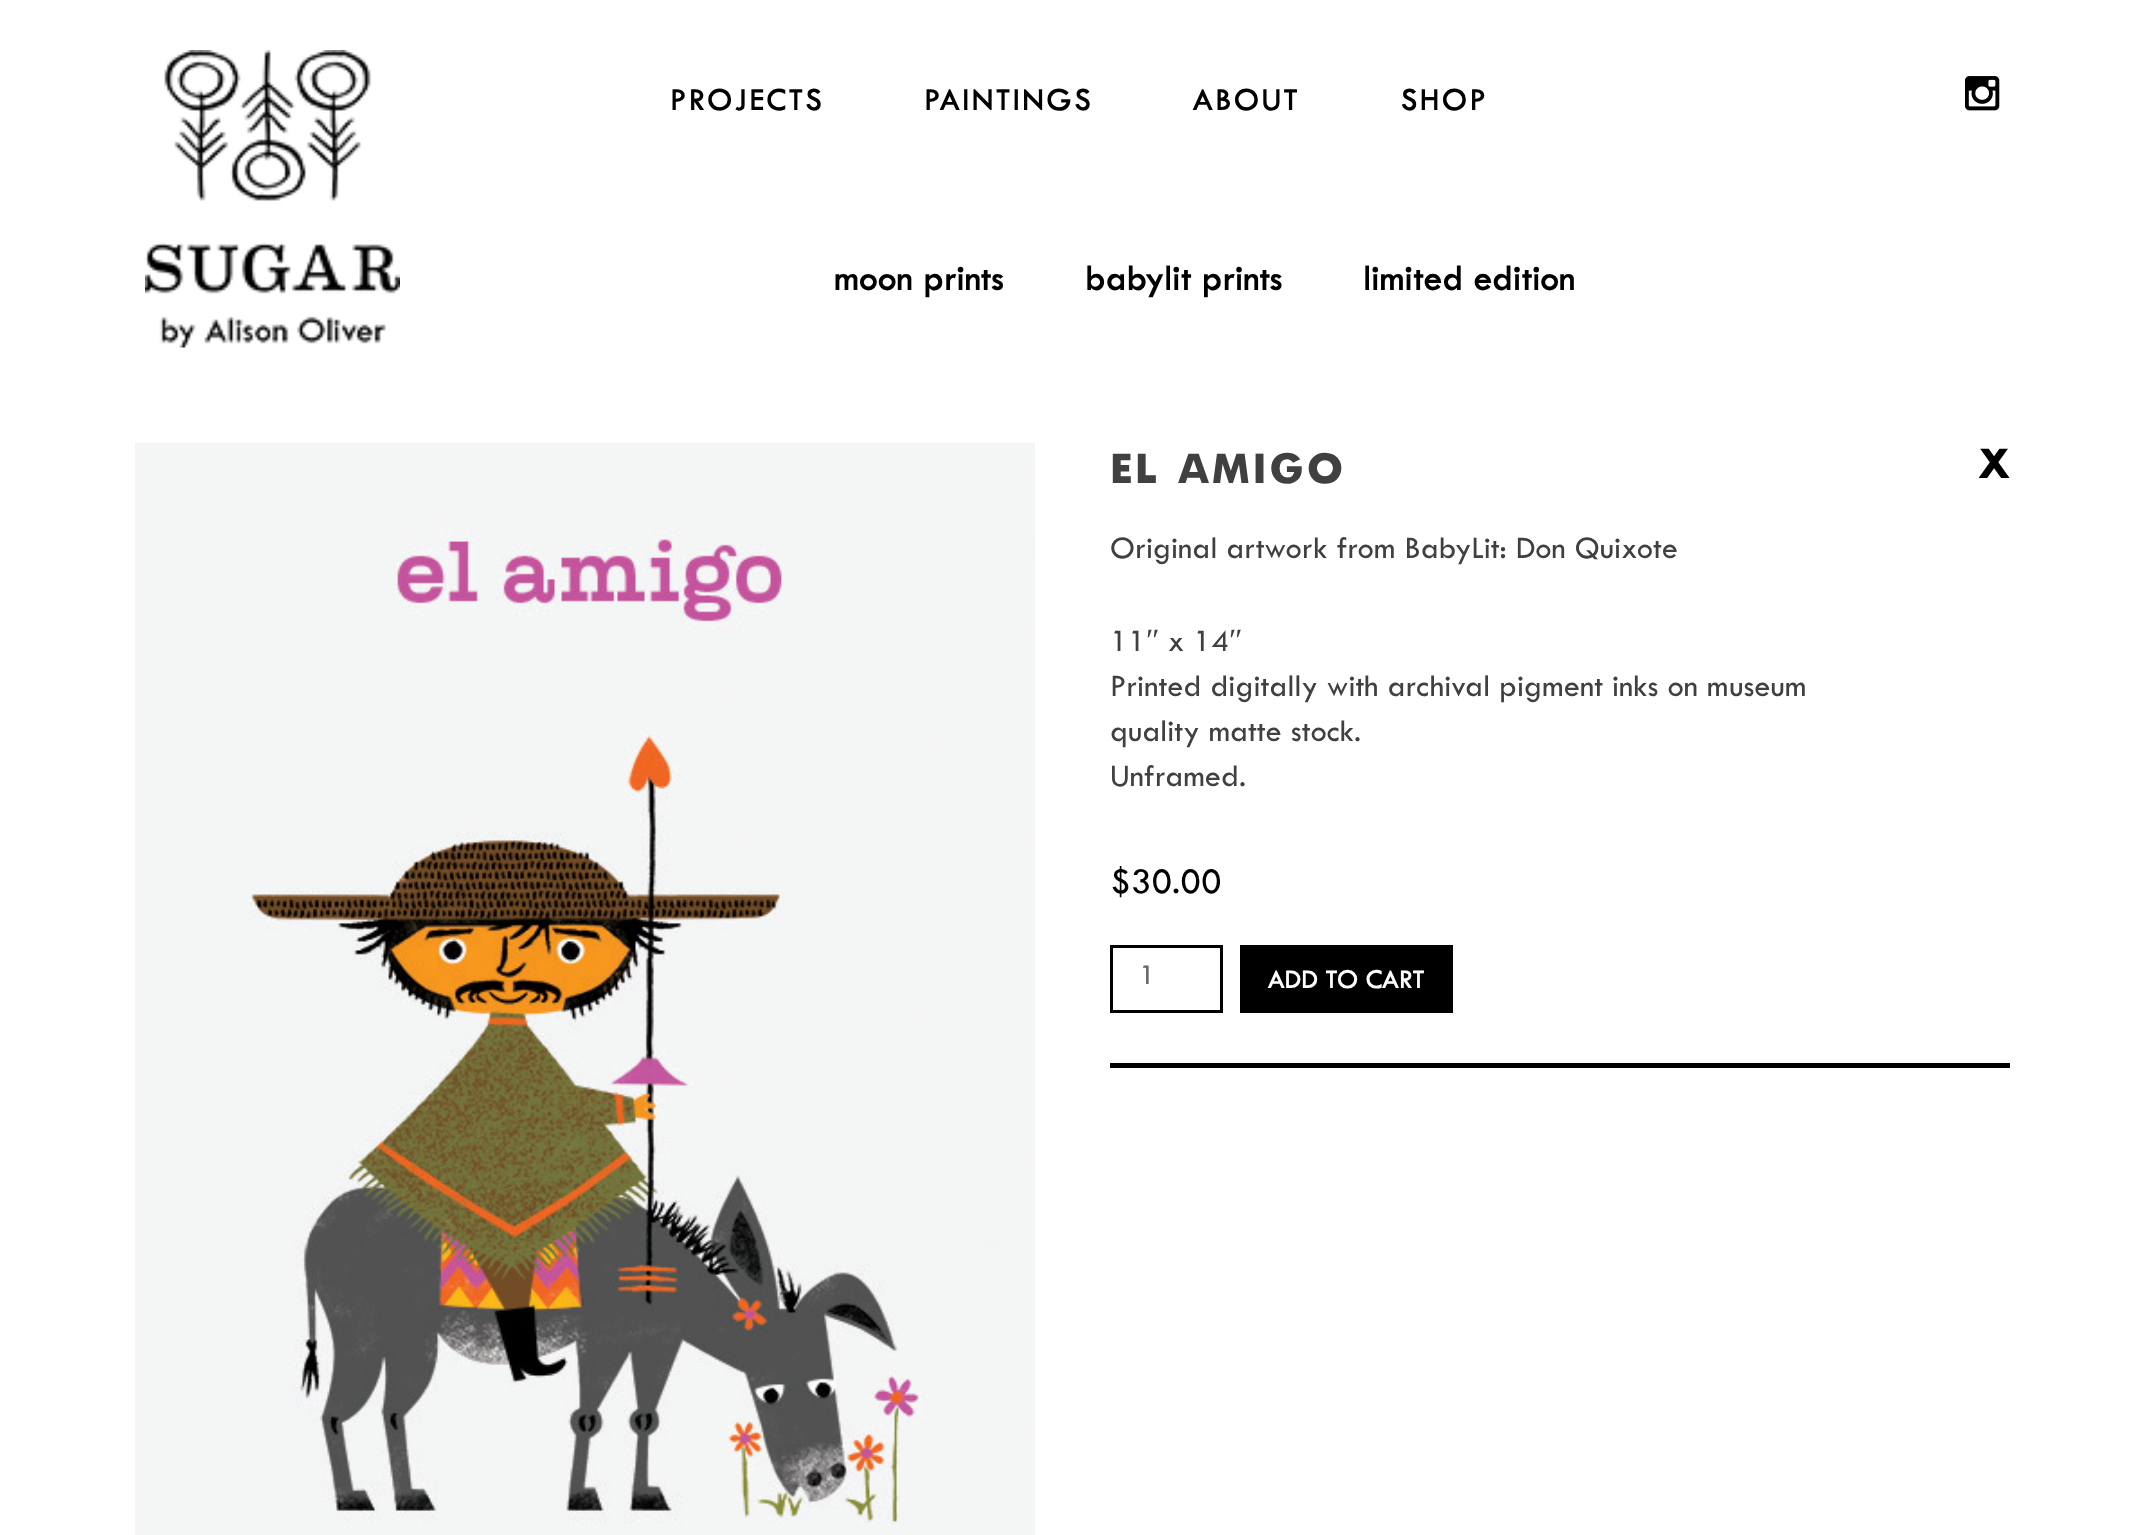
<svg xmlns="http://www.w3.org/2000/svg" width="2144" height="1535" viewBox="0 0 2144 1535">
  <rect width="100%" height="100%" fill="#fff"/>
  <image x="145" y="50" width="255" height="298" href="img/1.png"/>
  <image x="1965" y="76" width="35" height="35" href="img/2.png"/>
  <image x="135" y="442" width="900" height="1093" href="img/3.png"/>
  <path d="M1110 1063h900v5H1110z" fill="#000"/>
  <path d="M1111.5 946.5h110v65H1111.5z" fill="none" stroke="#000" stroke-width="3"/>
  <path d="M1240 945h213v68H1240z" fill="#000"/>
  <g font-family="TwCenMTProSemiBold" font-size="32.5" letter-spacing="2.5" fill="#000">
    <text x="670" y="110">PROJECTS</text>
    <text x="924" y="110">PAINTINGS</text>
    <text x="1193" y="110">ABOUT</text>
    <text x="1401" y="110">SHOP</text>
  </g>
  <g font-family="TwCenMTProSemiBold" font-size="37.5" fill="#000">
    <text x="834" y="290">moon prints</text>
    <text x="1085" y="290">babylit prints</text>
    <text x="1363" y="290">limited edition</text>
  </g>
  <text x="1110" y="483" font-family="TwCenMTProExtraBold" font-size="45" letter-spacing="2.5" fill="#404040">EL AMIGO</text>
  <text x="1978" y="478" font-family="TwCenMTProExtraBold" font-size="45" fill="#000">X</text>
  <g font-family="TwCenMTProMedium" font-size="32.5" fill="#404040">
    <text x="1110" y="558">Original artwork from BabyLit: Don Quixote</text>
    <text x="1110" y="651">11</text>
  </g>
  <text x="1146" y="651" font-family="Liberation Serif" font-size="32.5" fill="#404040">″</text>
  <text x="1168" y="651" font-family="TwCenMTProMedium" font-size="32.5" fill="#404040">x 14</text>
  <text x="1229" y="651" font-family="Liberation Serif" font-size="32.5" fill="#404040">″</text>
  <g font-family="TwCenMTProMedium" font-size="32.5" fill="#404040">
    <text x="1110" y="696">Printed digitally with archival pigment inks on museum</text>
    <text x="1110" y="741">quality matte stock.</text>
    <text x="1110" y="786">Unframed.</text>
  </g>
  <text x="1110" y="893" font-family="TwCenMTProMedium" font-size="37.5" fill="#000">$30.00</text>
  <text x="1139" y="984" font-family="TwCenMTProMedium" font-size="30" fill="#666">1</text>
  <text x="1268" y="988" font-family="TwCenMTProSemiBold" font-size="27.5" fill="#fff">ADD TO CART</text>
</svg>
